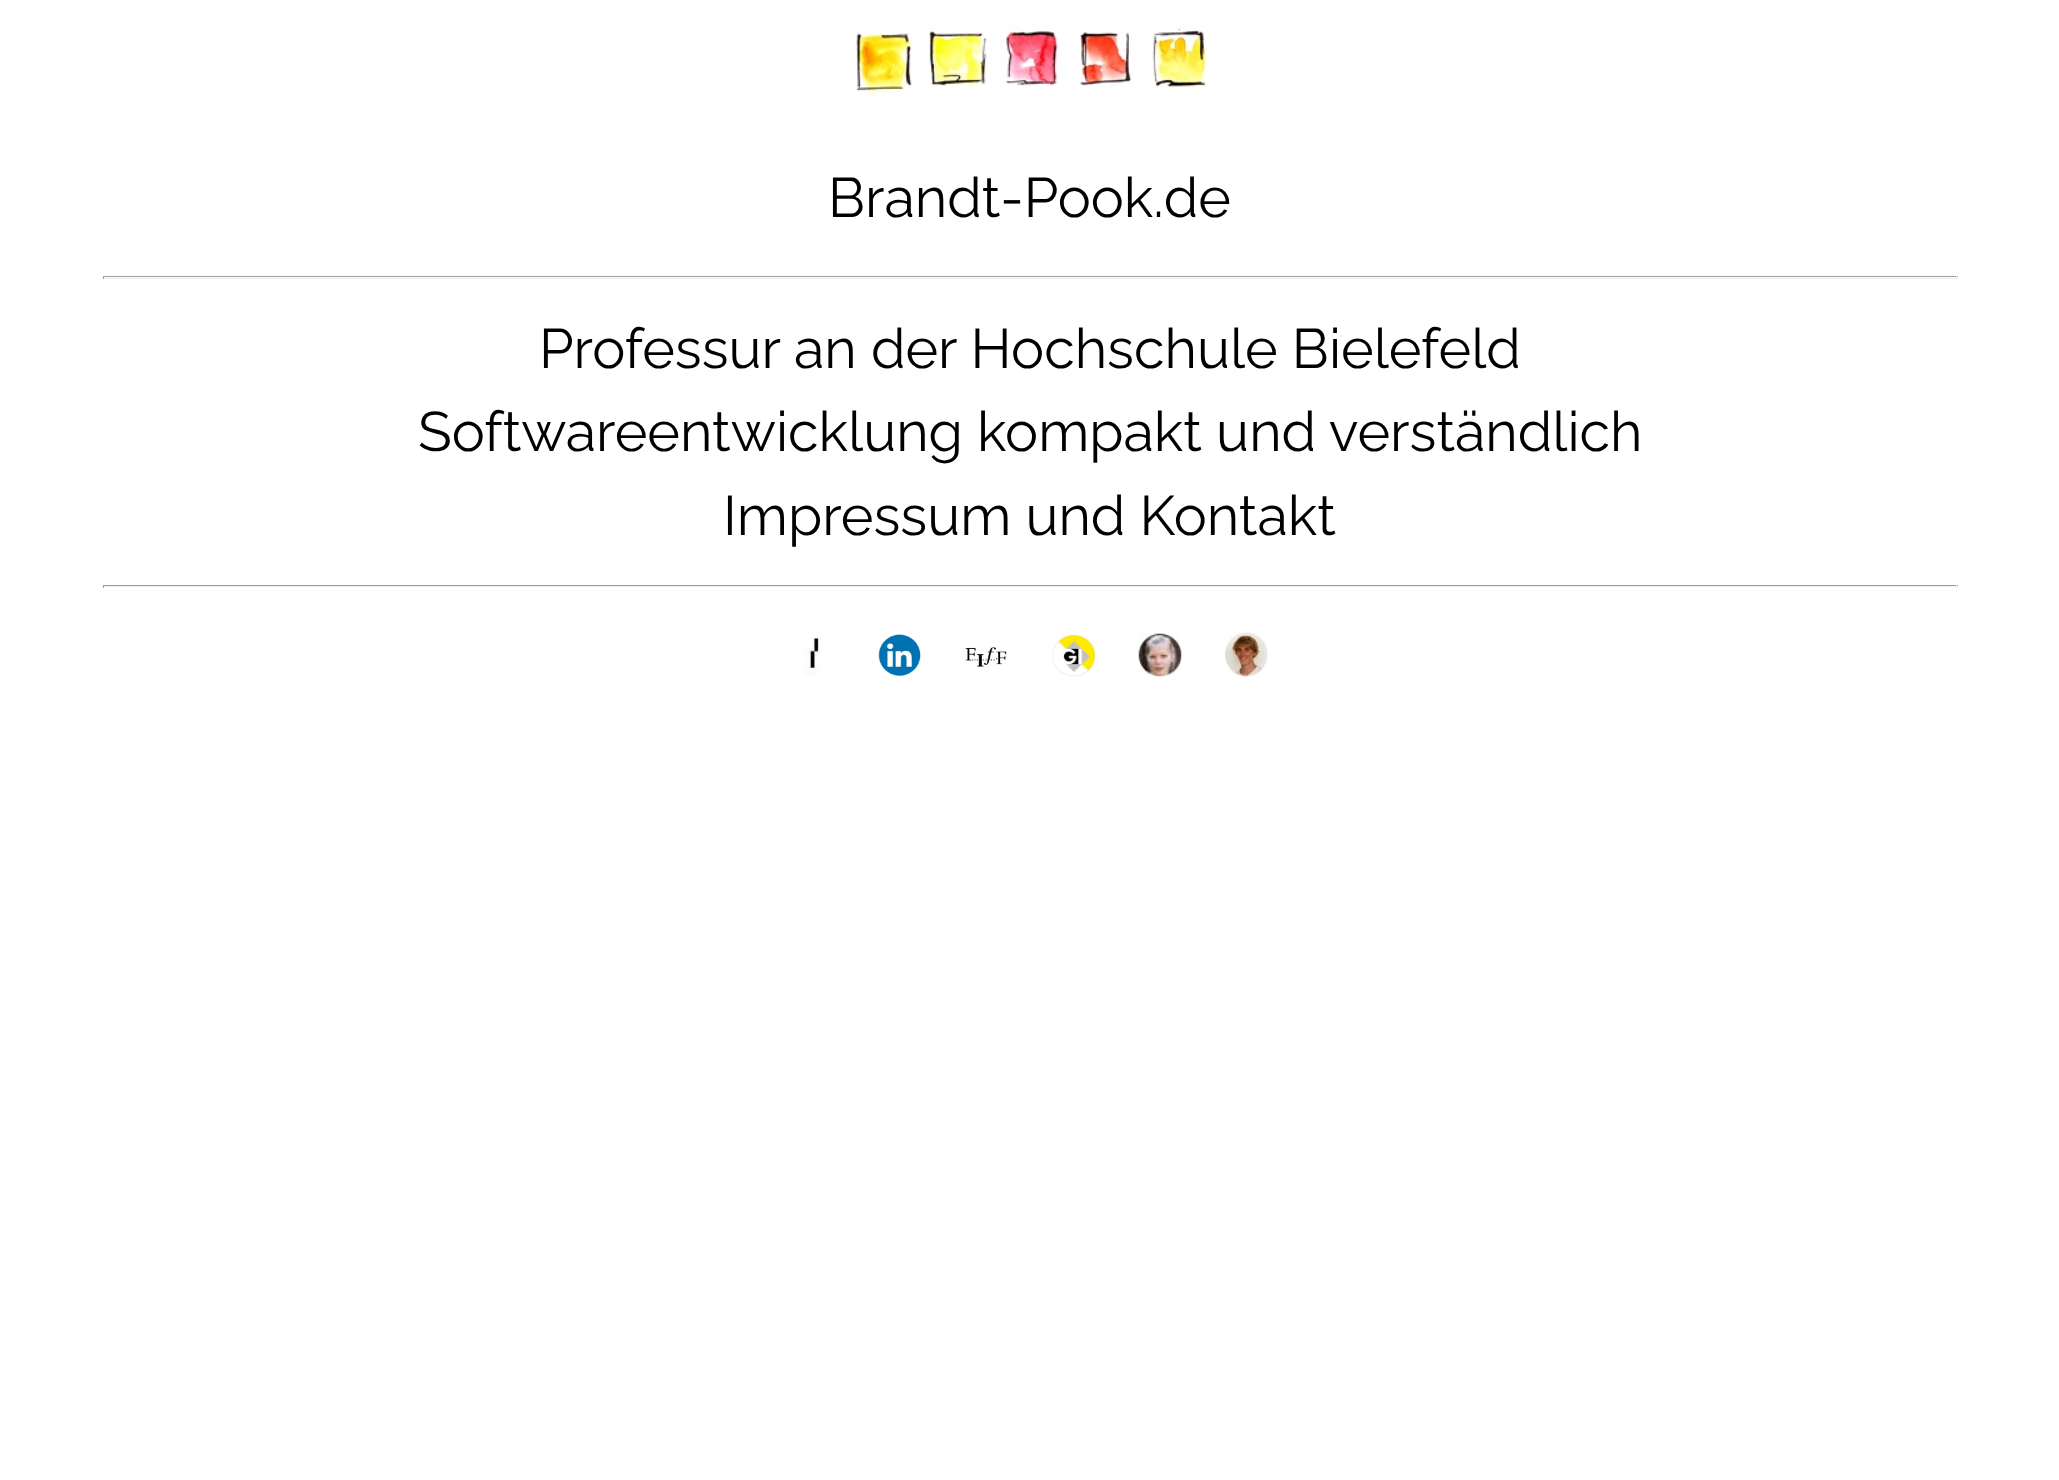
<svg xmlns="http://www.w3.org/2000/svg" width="2059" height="1480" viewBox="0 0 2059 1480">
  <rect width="100%" height="100%" fill="#fff"/>
  <image x="855" y="25" width="352" height="71" href="img/1.png"/>
  <path d="M103 276h1855v1H103z" fill="#9f9f9f"/>
  <path d="M1956 276h1v3H1956z" fill="#eee"/>
  <path d="M103 278h1855v1H103z" fill="#eee"/>
  <path d="M103 276h1v3H103z" fill="#9f9f9f"/>
  <path d="M103 585h1855v1H103z" fill="#9f9f9f"/>
  <path d="M1956 585h1v3H1956z" fill="#eee"/>
  <path d="M103 586h1855v1H103z" fill="#eee"/>
  <path d="M103 585h1v3H103z" fill="#9f9f9f"/>
  <image x="802" y="637" width="19" height="39" href="img/2.png"/>
  <image x="878" y="634" width="43" height="43" href="img/3.png"/>
  <image x="965" y="647" width="43" height="20" href="img/4.png"/>
  <image x="1052" y="635" width="43" height="42" href="img/5.png"/>
  <image x="1138" y="633" width="44" height="44" href="img/6.png"/>
  <image x="1225" y="632" width="43" height="45" href="img/7.png"/>
  <g font-family="Raleway" font-size="55.6" font-weight="100" fill="#000">
    <text x="828" y="217">Brandt-Pook.de</text>
    <text x="539" y="368">Professur an der Hochschule Bielefeld</text>
    <text x="418" y="451">Softwareentwicklung kompakt und verständlich</text>
    <text x="723" y="535">Impressum und Kontakt</text>
  </g>
</svg>
